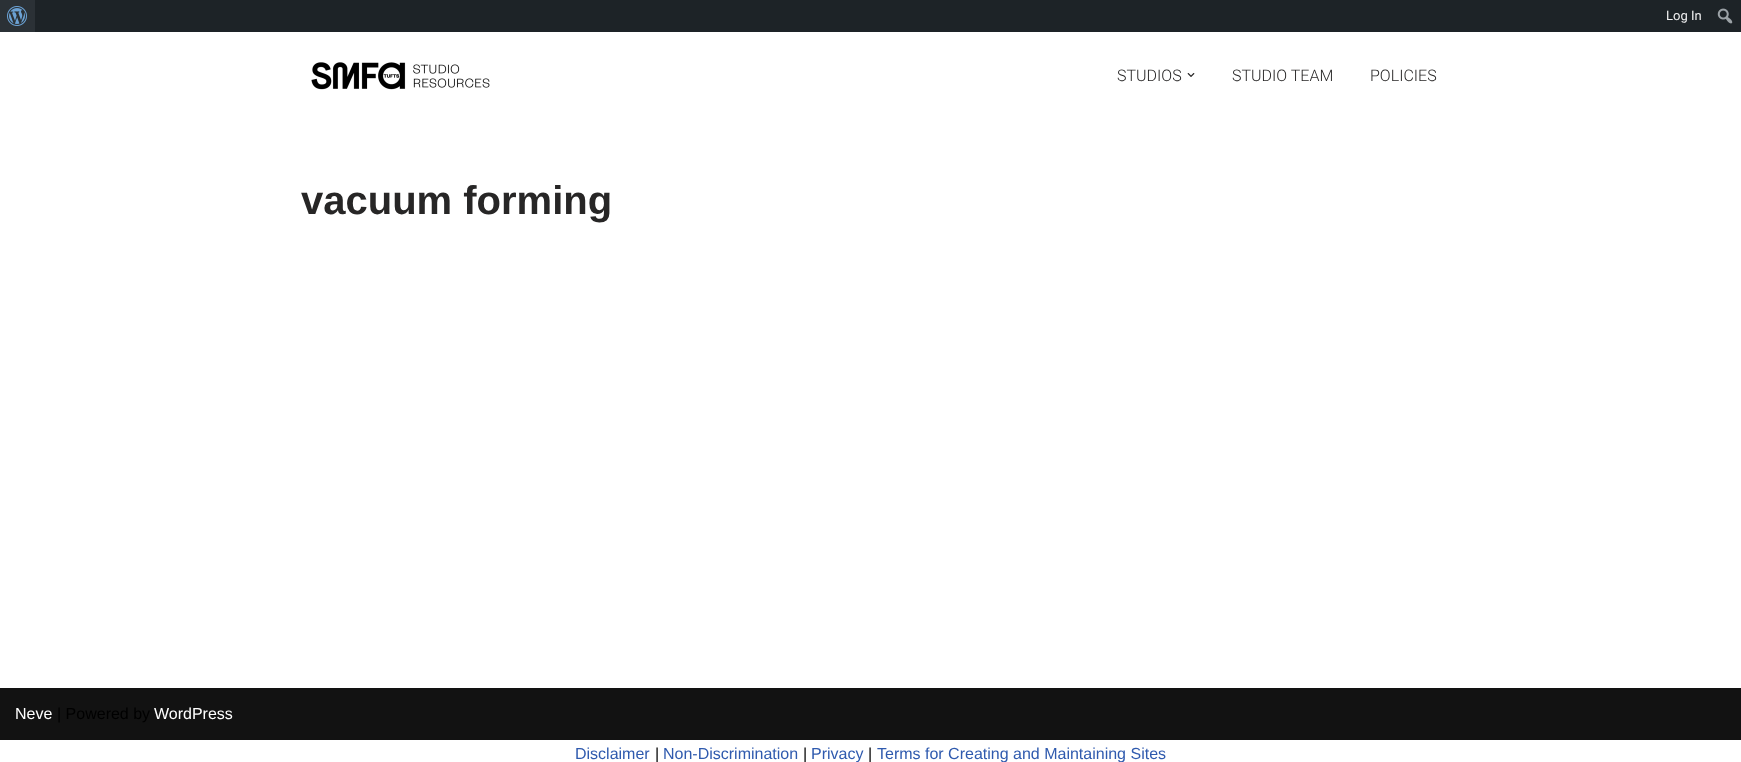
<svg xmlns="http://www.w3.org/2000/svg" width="1741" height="762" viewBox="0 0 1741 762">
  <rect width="100%" height="100%" fill="#fff"/>
  <path d="M35 0h1706v32H35z" fill="#1d2327"/>
  <path d="M0 0h35v32H0z" fill="#2b3136"/>
  <image x="7" y="6" width="20" height="20" href="img/1.png"/>
  <image x="1717" y="8" width="16" height="16" href="img/2.png"/>
  <image x="311" y="62" width="179" height="28" href="img/3.png"/>
  <image x="1187" y="73" width="8" height="4" href="img/4.png"/>
  <path d="M0 688h1741v52H0z" fill="#121212"/>
  <text x="1666" y="20" font-family="Roboto" font-size="13" fill="#f0f0f1">Log In</text>
  <g font-family="Roboto" font-size="16" font-weight="300" fill="#272626">
    <text x="1117" y="81">STUDIOS</text>
    <text x="1232" y="81">STUDIO TEAM</text>
    <text x="1370" y="81">POLICIES</text>
  </g>
  <text x="301" y="214" font-family="Liberation Sans" font-size="40" font-weight="bold" fill="#272626">vacuum forming</text>
  <text x="15" y="719" font-family="Liberation Sans" font-size="16" fill="#fff">Neve</text>
  <text x="57" y="719" font-family="Liberation Sans" font-size="16" fill="#000">| Powered by</text>
  <text x="154" y="719" font-family="Liberation Sans" font-size="16" fill="#fff">WordPress</text>
  <text x="575" y="759" font-family="Liberation Sans" font-size="16" fill="#2f5aae">Disclaimer</text>
  <text x="655" y="759" font-family="Liberation Sans" font-size="16" fill="#000">|</text>
  <text x="663" y="759" font-family="Liberation Sans" font-size="16" fill="#2f5aae">Non-Discrimination</text>
  <text x="803" y="759" font-family="Liberation Sans" font-size="16" fill="#000">|</text>
  <text x="811" y="759" font-family="Liberation Sans" font-size="16" fill="#2f5aae">Privacy</text>
  <text x="868" y="759" font-family="Liberation Sans" font-size="16" fill="#000">|</text>
  <text x="877" y="759" font-family="Liberation Sans" font-size="16" fill="#2f5aae">Terms for Creating and Maintaining Sites</text>
</svg>
